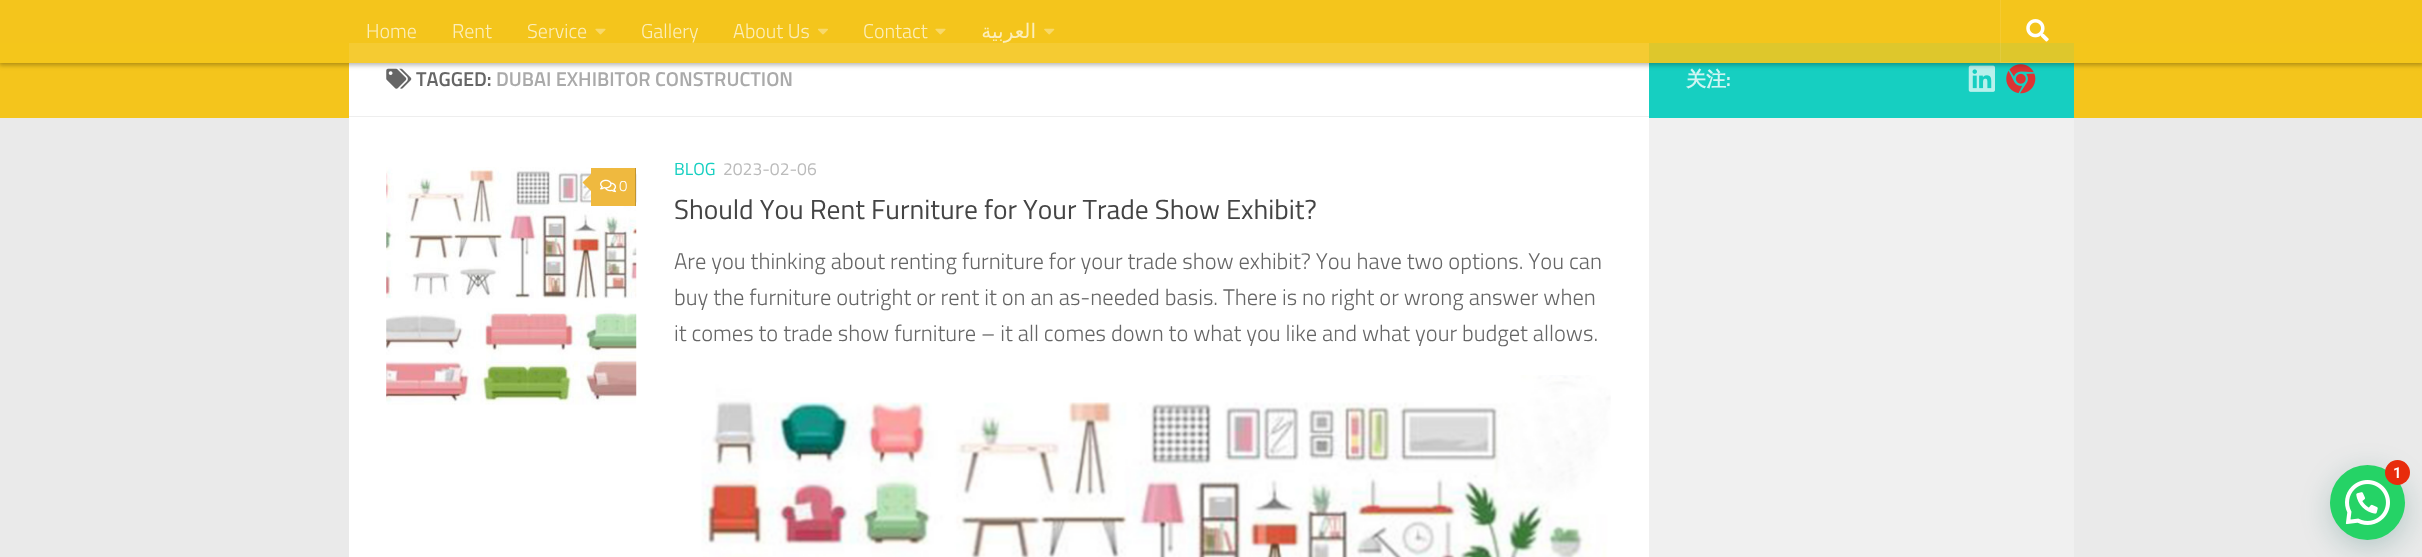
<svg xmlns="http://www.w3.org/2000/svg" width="2422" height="557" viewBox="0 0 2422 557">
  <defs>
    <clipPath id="clip1"><path d="M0 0H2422V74H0ZM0 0H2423V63H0Z" clip-rule="evenodd"/></clipPath>
  </defs>
  <rect width="100%" height="100%" fill="#eaeaea"/>
  <path d="M0 0h2422v118H0z" fill="#f4c51c"/>
  <path d="M349 43h1300v514H349z" fill="#fff"/>
  <image x="386" y="68" width="26" height="21" href="img/5.png"/>
  <path d="M1649 43h425v75H1649z" fill="#16cfc1"/>
  <image x="1968" y="65" width="27" height="27" href="img/9.png"/>
  <image x="2006" y="64" width="30" height="30" href="img/10.png"/>
  <g clip-path="url(#clip1)">
    <path d="M-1 0h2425v65H-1z" fill="#0000004d" filter="blur(2.5px)"/>
  </g>
  <path d="M0 43h2422v20H0z" fill="#f4c51ce6"/>
  <image x="595" y="28" width="11" height="7" href="img/1.png"/>
  <image x="818" y="28" width="10" height="7" href="img/2.png"/>
  <image x="935" y="28" width="11" height="7" href="img/1.png"/>
  <image x="1044" y="28" width="11" height="7" href="img/3.png"/>
  <path d="M2000 0V63H2073V62H2001V0Z" fill="#ffffff1a"/>
  <image x="2026" y="19" width="23" height="23" href="img/4.png"/>
  <path d="M349 116h1300v1H349z" fill="#eee"/>
  <image x="386" y="167" width="251" height="238" href="img/6.png"/>
  <path d="M591 168h44v38H591z" fill="#efb93f"/>
  <path d="M635 168h1v38H635z" fill="#bf9432"/>
  <path d="M594 171V194L582.5 182.5Z" fill="#efb93f"/>
  <image x="600" y="179" width="17" height="14" href="img/7.png"/>
  <image x="701" y="375" width="910" height="182" href="img/8.png"/>
  <path d="M1649 118h425v439H1649z" fill="#f0f0f0"/>
  <rect x="2331" y="473" width="75" height="75" rx="37.5" fill="#075e543d" filter="blur(15px)"/>
  <circle cx="2367.5" cy="502.5" r="37.5" fill="#25d366"/>
  <image x="2345" y="480" width="45" height="45" href="img/11.png"/>
  <circle cx="2397.5" cy="472.5" r="12.5" fill="#e82c0c"/>
  <g font-family="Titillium" font-size="20" font-weight="300" fill="#fceebb">
    <text x="366" y="38">Home</text>
    <text x="452" y="38">Rent</text>
    <text x="527" y="38">Service</text>
    <text x="641" y="38">Gallery</text>
    <text x="733" y="38">About Us</text>
    <text x="863" y="38">Contact</text>
  </g>
  <text x="1036" y="38" font-family="DejaVu Sans" font-size="20" direction="rtl" fill="#fceebb">العربية</text>
  <text x="416" y="86" font-family="Titillium" font-size="20" font-weight="600" fill="#666">TAGGED:</text>
  <text x="496" y="86" font-family="Titillium" font-size="20" font-weight="600" fill="#aaa">DUBAI EXHIBITOR CONSTRUCTION</text>
  <text x="619" y="191" font-family="Titillium" font-size="15" font-weight="300" fill="#fff">0</text>
  <text x="674" y="175" font-family="Titillium" font-size="17.5" fill="#16cfc1">BLOG</text>
  <text x="723" y="175" font-family="Titillium" font-size="17.5" fill="#bbb">2023-02-06</text>
  <text x="674" y="219" font-family="Titillium" font-size="27.5" fill="#444">Should You Rent Furniture for Your Trade Show Exhibit?</text>
  <g font-family="Titillium" font-size="22.5" font-weight="300" fill="#666">
    <text x="674" y="269">Are you thinking about renting furniture for your trade show exhibit? You have two options. You can</text>
    <text x="674" y="305">buy the furniture outright or rent it on an as-needed basis. There is no right or wrong answer when</text>
    <text x="674" y="341">it comes to trade show furniture – it all comes down to what you like and what your budget allows.</text>
  </g>
  <text x="1686" y="86" font-family="WenQuanYi Zen Hei" font-size="20" font-weight="bold" fill="#d0f5f3">关注</text>
  <text x="1726" y="86" font-family="Titillium" font-size="20" font-weight="600" fill="#d0f5f3">:</text>
  <text x="2393" y="478" font-family="Roboto" font-size="15" font-weight="600" fill="#fff">1</text>
</svg>
